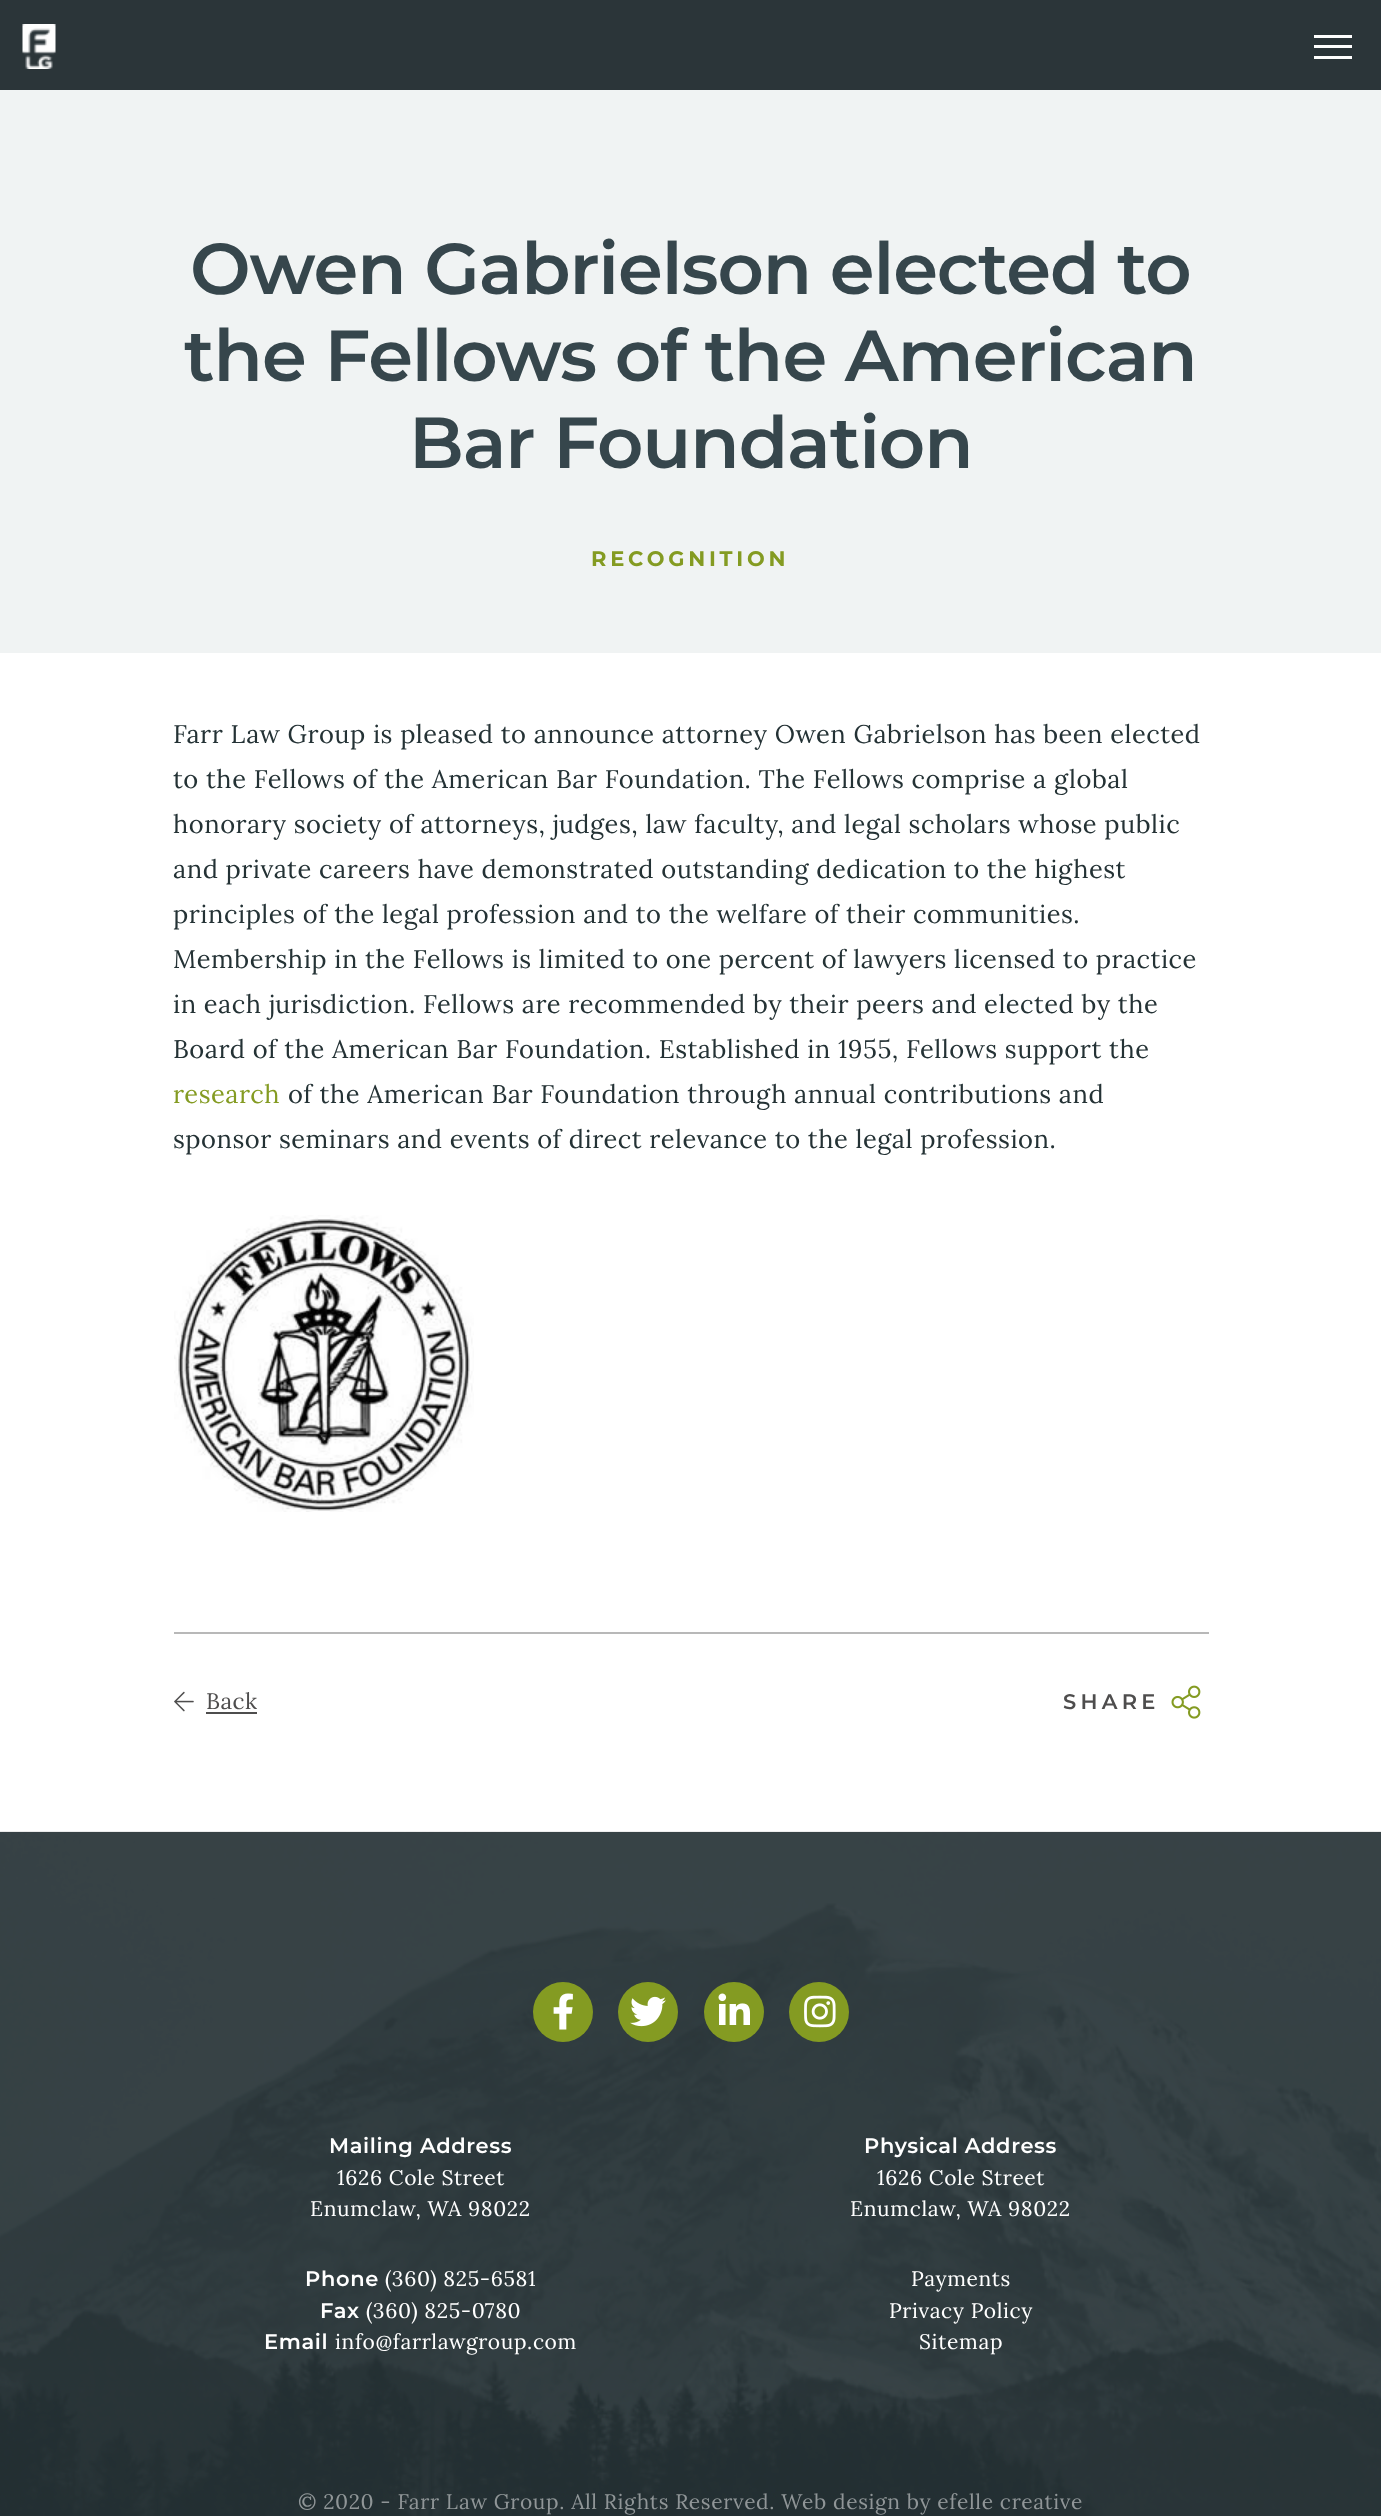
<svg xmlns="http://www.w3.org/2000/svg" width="1381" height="2516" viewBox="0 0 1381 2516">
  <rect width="100%" height="100%" fill="#fff"/>
  <path d="M0 0h1381v90H0z" fill="#2b3539"/>
  <image x="22" y="24" width="34" height="45" href="img/1.png"/>
  <path d="M1314 45h38v3H1314z" fill="#fff"/>
  <path d="M1314 35h38v3H1314z" fill="#fff"/>
  <path d="M1314 56h38v3H1314z" fill="#fff"/>
  <path d="M0 90h1381v563H0z" fill="#f0f3f3"/>
  <image x="174" y="1215" width="300" height="297" href="img/2.png"/>
  <path d="M174 1632h1035v2H174z" fill="#b8b8b8"/>
  <image x="174" y="1691" width="20" height="21" href="img/3.png"/>
  <path d="M206 1712h51v2H206z" fill="#4e4d4d"/>
  <image x="1171" y="1685" width="30" height="34" href="img/4.png"/>
  <path d="M0 1832h1381v684H0z" fill="#263337"/>
  <image x="0" y="1831" width="1381" height="685" href="img/5.png"/>
  <circle cx="563" cy="2012" r="30" fill="#849b22"/>
  <image x="553" y="1993" width="20" height="37" href="img/6.png"/>
  <circle cx="648" cy="2012" r="30" fill="#849b22"/>
  <image x="630" y="1996" width="36" height="31" href="img/7.png"/>
  <circle cx="734" cy="2012" r="30" fill="#849b22"/>
  <image x="718" y="1993" width="32" height="32" href="img/8.png"/>
  <circle cx="819" cy="2012" r="30" fill="#849b22"/>
  <image x="804" y="1995" width="32" height="33" href="img/9.png"/>
  <g font-family="Montserrat" font-size="72" font-weight="600" letter-spacing="-1.1" fill="#36464c">
    <text x="190" y="294">Owen Gabrielson elected to</text>
    <text x="184" y="381">the Fellows of the American</text>
    <text x="409" y="468">Bar Foundation</text>
  </g>
  <text x="591" y="566" font-family="Montserrat" font-size="21" font-weight="bold" letter-spacing="3.75" fill="#849b22">RECOGNITION</text>
  <g font-family="Lora" font-size="25.5" letter-spacing="0.5" fill="#243235">
    <text x="173" y="743">Farr Law Group is pleased to announce attorney Owen Gabrielson has been elected</text>
    <text x="173" y="788">to the Fellows of the American Bar Foundation. The Fellows comprise a global</text>
    <text x="173" y="833">honorary society of attorneys, judges, law faculty, and legal scholars whose public</text>
    <text x="173" y="878">and private careers have demonstrated outstanding dedication to the highest</text>
    <text x="173" y="923">principles of the legal profession and to the welfare of their communities.</text>
    <text x="173" y="968">Membership in the Fellows is limited to one percent of lawyers licensed to practice</text>
    <text x="173" y="1013">in each jurisdiction. Fellows are recommended by their peers and elected by the</text>
    <text x="173" y="1058">Board of the American Bar Foundation. Established in 1955, Fellows support the</text>
  </g>
  <text x="173" y="1103" font-family="Lora" font-size="25.5" letter-spacing="0.5" fill="#849b22">research</text>
  <g font-family="Lora" font-size="25.5" letter-spacing="0.5" fill="#243235">
    <text x="288" y="1103">of the American Bar Foundation through annual contributions and</text>
    <text x="173" y="1148">sponsor seminars and events of direct relevance to the legal profession.</text>
  </g>
  <text x="206" y="1709" font-family="Lora" font-size="22.5" letter-spacing="0.5" fill="#4e4d4d">Back</text>
  <text x="1063" y="1709" font-family="Montserrat" font-size="21" font-weight="600" letter-spacing="4.25" fill="#4e4d4d">SHARE</text>
  <text x="329" y="2153" font-family="Montserrat" font-size="21" font-weight="600" letter-spacing="0.63" fill="#fff">Mailing Address</text>
  <g font-family="Lora" font-size="21" letter-spacing="0.63" fill="#fff">
    <text x="337" y="2185">1626 Cole Street</text>
    <text x="310" y="2216">Enumclaw, WA 98022</text>
  </g>
  <text x="864" y="2153" font-family="Montserrat" font-size="21" font-weight="600" letter-spacing="0.63" fill="#fff">Physical Address</text>
  <g font-family="Lora" font-size="21" letter-spacing="0.63" fill="#fff">
    <text x="877" y="2185">1626 Cole Street</text>
    <text x="850" y="2216">Enumclaw, WA 98022</text>
  </g>
  <text x="305" y="2286" font-family="Montserrat" font-size="21" font-weight="600" letter-spacing="0.63" fill="#fff">Phone</text>
  <text x="385" y="2286" font-family="Lora" font-size="21" letter-spacing="0.63" fill="#fff">(360) 825-6581</text>
  <text x="320" y="2318" font-family="Montserrat" font-size="21" font-weight="600" letter-spacing="0.63" fill="#fff">Fax</text>
  <text x="366" y="2318" font-family="Lora" font-size="21" letter-spacing="0.63" fill="#fff">(360) 825-0780</text>
  <text x="264" y="2349" font-family="Montserrat" font-size="21" font-weight="600" letter-spacing="0.63" fill="#fff">Email</text>
  <g font-family="Lora" font-size="21" letter-spacing="0.63" fill="#fff">
    <text x="335" y="2349">info@farrlawgroup.com</text>
    <text x="911" y="2286">Payments</text>
    <text x="889" y="2318">Privacy Policy</text>
    <text x="919" y="2349">Sitemap</text>
  </g>
  <text x="298" y="2509" font-family="Lora" font-size="21" letter-spacing="0.63" fill="#8f9597">© 2020 - Farr Law Group. All Rights Reserved. Web design by efelle creative</text>
</svg>
